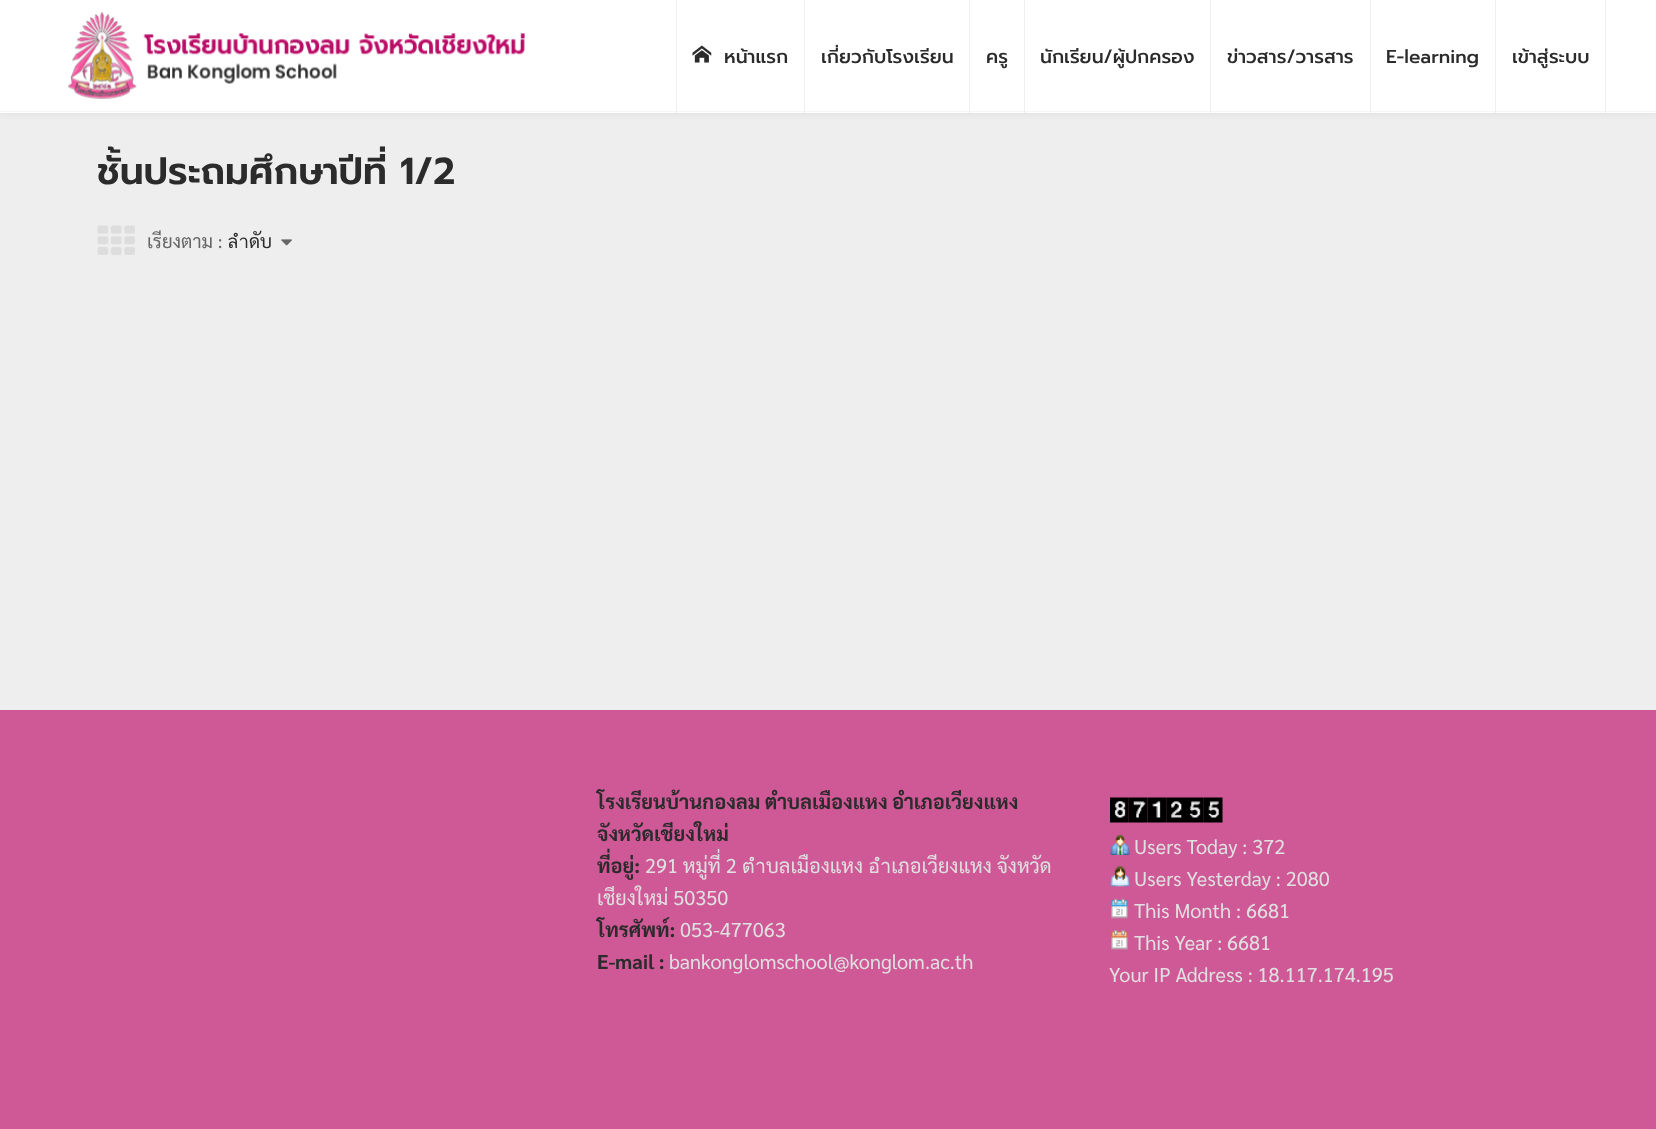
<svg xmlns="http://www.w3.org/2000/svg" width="1656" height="1129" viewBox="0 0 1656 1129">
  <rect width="100%" height="100%" fill="#eee"/>
  <path d="M0 0h1656v113H0z" fill="#00000012" filter="blur(5px)"/>
  <path d="M0 0h1656v113H0z" fill="#fff"/>
  <path d="M0 111h1656v1H0z" fill="#f5f5f5"/>
  <image x="68" y="12" width="457" height="87" href="img/1.png"/>
  <path d="M1605 0h1v113H1605z" fill="#ecf0f1"/>
  <path d="M676 0h1v113H676z" fill="#ecf0f1"/>
  <image x="692" y="45" width="20" height="18" href="img/2.png"/>
  <path d="M804 0h1v113H804z" fill="#ecf0f1"/>
  <path d="M969 0h1v113H969z" fill="#ecf0f1"/>
  <path d="M1024 0h1v113H1024z" fill="#ecf0f1"/>
  <path d="M1210 0h1v113H1210z" fill="#ecf0f1"/>
  <path d="M1370 0h1v113H1370z" fill="#ecf0f1"/>
  <path d="M1495 0h1v113H1495z" fill="#ecf0f1"/>
  <image x="97" y="225" width="38" height="30" href="img/3.png"/>
  <image x="281" y="239" width="11" height="7" href="img/4.png"/>
  <path d="M0 710h1656v419H0z" fill="#cf5896"/>
  <image x="1110" y="797" width="19" height="26" href="img/5.png"/>
  <image x="1128" y="797" width="20" height="26" href="img/6.png"/>
  <image x="1147" y="797" width="20" height="26" href="img/7.png"/>
  <image x="1166" y="797" width="19" height="26" href="img/8.png"/>
  <image x="1185" y="797" width="19" height="26" href="img/9.png"/>
  <image x="1203" y="797" width="20" height="26" href="img/10.png"/>
  <image x="1110" y="835" width="20" height="20" href="img/11.png"/>
  <image x="1110" y="866" width="20" height="21" href="img/12.png"/>
  <image x="1111" y="898" width="17" height="21" href="img/13.png"/>
  <image x="1111" y="930" width="17" height="20" href="img/14.png"/>
  <g font-family="Prompt" font-size="18.75" font-weight="500" fill="#2b2b2b">
    <text x="724" y="63">หน้าแรก</text>
    <text x="821" y="63">เกี่ยวกับโรงเรียน</text>
    <text x="986" y="63">ครู</text>
    <text x="1040" y="63">นักเรียน/ผู้ปกครอง</text>
    <text x="1227" y="63">ข่าวสาร/วารสาร</text>
    <text x="1386" y="63">E-learning</text>
    <text x="1512" y="63">เข้าสู่ระบบ</text>
  </g>
  <text x="97" y="184" font-family="Prompt" font-size="37.5" font-weight="600" fill="#2b2b2b">ชั้นประถมศึกษาปีที่ 1/2</text>
  <text x="147" y="248" font-family="Sarabun" font-size="18.75" fill="#666">เรียงตาม :</text>
  <text x="227" y="248" font-family="Sarabun" font-size="18.75" fill="#2b2b2b">ลำดับ</text>
  <g font-family="Sarabun" font-size="20" font-weight="bold" fill="#2b2b2b">
    <text x="597" y="809">โรงเรียนบ้านกองลม ตำบลเมืองแหง อำเภอเวียงแหง</text>
    <text x="597" y="841">จังหวัดเชียงใหม่</text>
    <text x="597" y="873">ที่อยู่:</text>
  </g>
  <g font-family="Sarabun" font-size="20" fill="#e0e0e0">
    <text x="645" y="873">291 หมู่ที่ 2 ตำบลเมืองแหง อำเภอเวียงแหง จังหวัด</text>
    <text x="597" y="905">เชียงใหม่ 50350</text>
  </g>
  <text x="597" y="937" font-family="Sarabun" font-size="20" font-weight="bold" fill="#2b2b2b">โทรศัพท์:</text>
  <text x="680" y="937" font-family="Sarabun" font-size="20" fill="#e0e0e0">053-477063</text>
  <text x="597" y="969" font-family="Sarabun" font-size="20" font-weight="bold" fill="#2b2b2b">E-mail :</text>
  <g font-family="Sarabun" font-size="20" fill="#e0e0e0">
    <text x="669" y="969">bankonglomschool@konglom.ac.th</text>
    <text x="1134" y="854">Users Today : 372</text>
    <text x="1134" y="886">Users Yesterday : 2080</text>
    <text x="1134" y="918">This Month : 6681</text>
    <text x="1134" y="950">This Year : 6681</text>
    <text x="1109" y="982">Your IP Address : 18.117.174.195</text>
  </g>
</svg>
